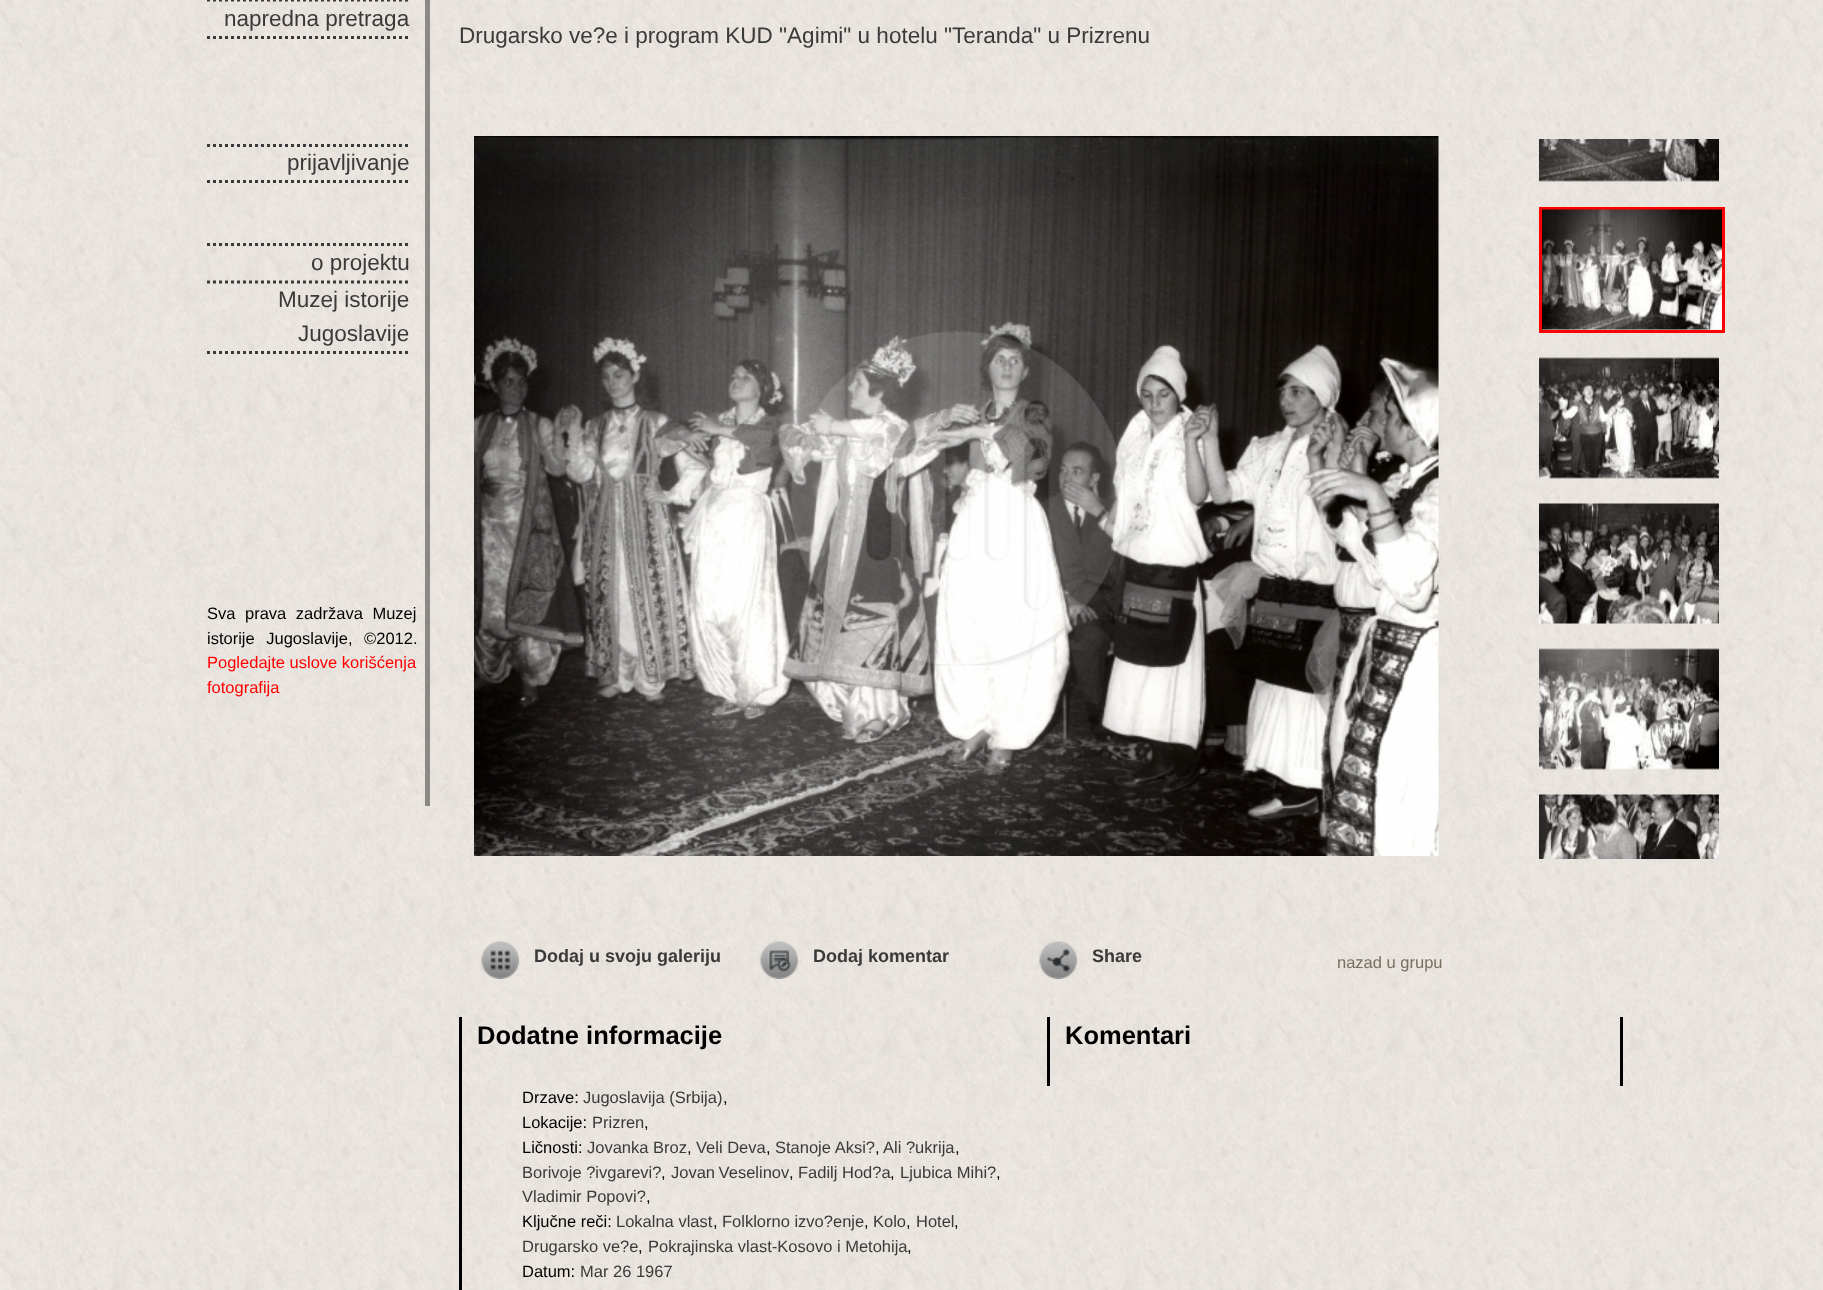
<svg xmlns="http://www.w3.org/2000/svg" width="1823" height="1290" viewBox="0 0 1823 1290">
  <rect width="100%" height="100%" fill="#fff"/>
  <image x="0" y="0" width="1823" height="1290" href="img/1.png"/>
  <path d="M425 0h5v806H425z" fill="#00000066"/>
  <path d="M207 0H409.5" fill="none" stroke="#393a39" stroke-width="3" stroke-dasharray="3 3"/>
  <path d="M207 37.5H409.5" fill="none" stroke="#393a39" stroke-width="3" stroke-dasharray="3 3"/>
  <path d="M207 145.5H409.5" fill="none" stroke="#393a39" stroke-width="3" stroke-dasharray="3 3"/>
  <path d="M207 181.5H409.5" fill="none" stroke="#393a39" stroke-width="3" stroke-dasharray="3 3"/>
  <path d="M207 244.5H409.5" fill="none" stroke="#393a39" stroke-width="3" stroke-dasharray="3 3"/>
  <path d="M207 282H409.5" fill="none" stroke="#393a39" stroke-width="3" stroke-dasharray="3 3"/>
  <path d="M207 352.5H409.5" fill="none" stroke="#393a39" stroke-width="3" stroke-dasharray="3 3"/>
  <image x="474" y="136" width="965" height="720" href="img/2.png"/>
  <image x="1539" y="139" width="180" height="43" href="img/3.png"/>
  <path d="M1540.5 208.5h183v123H1540.5z" fill="none" stroke="#f00" stroke-width="3"/>
  <image x="1542" y="209" width="180" height="121" href="img/4.png"/>
  <image x="1539" y="357" width="180" height="122" href="img/5.png"/>
  <image x="1539" y="503" width="180" height="121" href="img/6.png"/>
  <image x="1539" y="648" width="180" height="122" href="img/7.png"/>
  <image x="1539" y="794" width="180" height="65" href="img/8.png"/>
  <image x="481" y="941" width="38" height="38" href="img/9.png"/>
  <image x="760" y="941" width="38" height="38" href="img/10.png"/>
  <image x="1039" y="941" width="38" height="38" href="img/11.png"/>
  <path d="M459 1017h3v273H459z" fill="#000"/>
  <path d="M1620 1017h3v69H1620z" fill="#000"/>
  <path d="M1047 1017h3v69H1047z" fill="#000"/>
  <g font-family="Liberation Sans" font-size="22.5" fill="#393a39">
    <text x="224" y="26">napredna pretraga</text>
    <text x="287" y="170">prijavljivanje</text>
    <text x="311" y="270">o projektu</text>
    <text x="278" y="307">Muzej istorije</text>
    <text x="298" y="341">Jugoslavije</text>
  </g>
  <g font-family="Liberation Sans" font-size="16.5" fill="#000">
    <text x="207" y="619" word-spacing="5">Sva prava zadržava Muzej</text>
    <text x="207" y="644" word-spacing="7">istorije Jugoslavije, ©2012.</text>
  </g>
  <g font-family="Liberation Sans" font-size="16.5" fill="#f00">
    <text x="207" y="668">Pogledajte uslove korišćenja</text>
    <text x="207" y="693">fotografija</text>
  </g>
  <text x="459" y="43" font-family="Liberation Sans" font-size="22.5" fill="#393a39">Drugarsko ve?e i program KUD "Agimi" u hotelu "Teranda" u Prizrenu</text>
  <g font-family="Liberation Sans" font-size="18" font-weight="bold" fill="#393a39">
    <text x="534" y="962">Dodaj u svoju galeriju</text>
    <text x="813" y="962">Dodaj komentar</text>
    <text x="1092" y="962">Share</text>
  </g>
  <text x="1337" y="968" font-family="Liberation Sans" font-size="16.5" fill="#767061">nazad u grupu</text>
  <text x="477" y="1044" font-family="Liberation Sans" font-size="25.5" font-weight="bold" fill="#000">Dodatne informacije</text>
  <text x="522" y="1103" font-family="Liberation Sans" font-size="16.5" fill="#000">Drzave:</text>
  <text x="583" y="1103" font-family="Liberation Sans" font-size="16.5" fill="#393a39">Jugoslavija (Srbija)</text>
  <g font-family="Liberation Sans" font-size="16.5" fill="#000">
    <text x="723" y="1103">,</text>
    <text x="522" y="1128">Lokacije:</text>
  </g>
  <text x="592" y="1128" font-family="Liberation Sans" font-size="16.5" fill="#393a39">Prizren</text>
  <g font-family="Liberation Sans" font-size="16.5" fill="#000">
    <text x="644" y="1128">,</text>
    <text x="522" y="1153">Ličnosti:</text>
  </g>
  <text x="587" y="1153" font-family="Liberation Sans" font-size="16.5" fill="#393a39">Jovanka Broz</text>
  <text x="687" y="1153" font-family="Liberation Sans" font-size="16.5" fill="#000">,</text>
  <text x="696" y="1153" font-family="Liberation Sans" font-size="16.5" fill="#393a39">Veli Deva</text>
  <text x="766" y="1153" font-family="Liberation Sans" font-size="16.5" fill="#000">,</text>
  <text x="775" y="1153" font-family="Liberation Sans" font-size="16.5" fill="#393a39">Stanoje Aksi?</text>
  <text x="875" y="1153" font-family="Liberation Sans" font-size="16.5" fill="#000">,</text>
  <text x="883" y="1153" font-family="Liberation Sans" font-size="16.5" fill="#393a39">Ali ?ukrija</text>
  <text x="955" y="1153" font-family="Liberation Sans" font-size="16.5" fill="#000">,</text>
  <text x="522" y="1178" font-family="Liberation Sans" font-size="16.5" fill="#393a39">Borivoje ?ivgarevi?</text>
  <text x="661" y="1178" font-family="Liberation Sans" font-size="16.5" fill="#000">,</text>
  <text x="671" y="1178" word-spacing="-1" font-family="Liberation Sans" font-size="16.5" fill="#393a39">Jovan Veselinov</text>
  <text x="789" y="1178" font-family="Liberation Sans" font-size="16.5" fill="#000">,</text>
  <text x="798" y="1178" font-family="Liberation Sans" font-size="16.5" fill="#393a39">Fadilj Hod?a</text>
  <text x="890" y="1178" font-family="Liberation Sans" font-size="16.5" fill="#000">,</text>
  <text x="900" y="1178" font-family="Liberation Sans" font-size="16.5" fill="#393a39">Ljubica Mihi?</text>
  <text x="996" y="1178" font-family="Liberation Sans" font-size="16.5" fill="#000">,</text>
  <text x="522" y="1202" font-family="Liberation Sans" font-size="16.5" fill="#393a39">Vladimir Popovi?</text>
  <g font-family="Liberation Sans" font-size="16.5" fill="#000">
    <text x="646" y="1202">,</text>
    <text x="522" y="1227">Ključne reči:</text>
  </g>
  <text x="616" y="1227" font-family="Liberation Sans" font-size="16.5" fill="#393a39">Lokalna vlast</text>
  <text x="713" y="1227" font-family="Liberation Sans" font-size="16.5" fill="#000">,</text>
  <text x="722" y="1227" font-family="Liberation Sans" font-size="16.5" fill="#393a39">Folklorno izvo?enje</text>
  <text x="864" y="1227" font-family="Liberation Sans" font-size="16.5" fill="#000">,</text>
  <text x="873" y="1227" font-family="Liberation Sans" font-size="16.5" fill="#393a39">Kolo</text>
  <text x="906" y="1227" font-family="Liberation Sans" font-size="16.5" fill="#000">,</text>
  <text x="916" y="1227" font-family="Liberation Sans" font-size="16.5" fill="#393a39">Hotel</text>
  <text x="954" y="1227" font-family="Liberation Sans" font-size="16.5" fill="#000">,</text>
  <text x="522" y="1252" font-family="Liberation Sans" font-size="16.5" fill="#393a39">Drugarsko ve?e</text>
  <text x="638" y="1252" font-family="Liberation Sans" font-size="16.5" fill="#000">,</text>
  <text x="648" y="1252" font-family="Liberation Sans" font-size="16.5" fill="#393a39">Pokrajinska vlast-Kosovo i Metohija</text>
  <g font-family="Liberation Sans" font-size="16.5" fill="#000">
    <text x="907" y="1252">,</text>
    <text x="522" y="1277">Datum:</text>
  </g>
  <text x="580" y="1277" font-family="Liberation Sans" font-size="16.5" fill="#393a39">Mar 26 1967</text>
  <text x="1065" y="1044" font-family="Liberation Sans" font-size="25.5" font-weight="bold" fill="#000">Komentari</text>
</svg>
